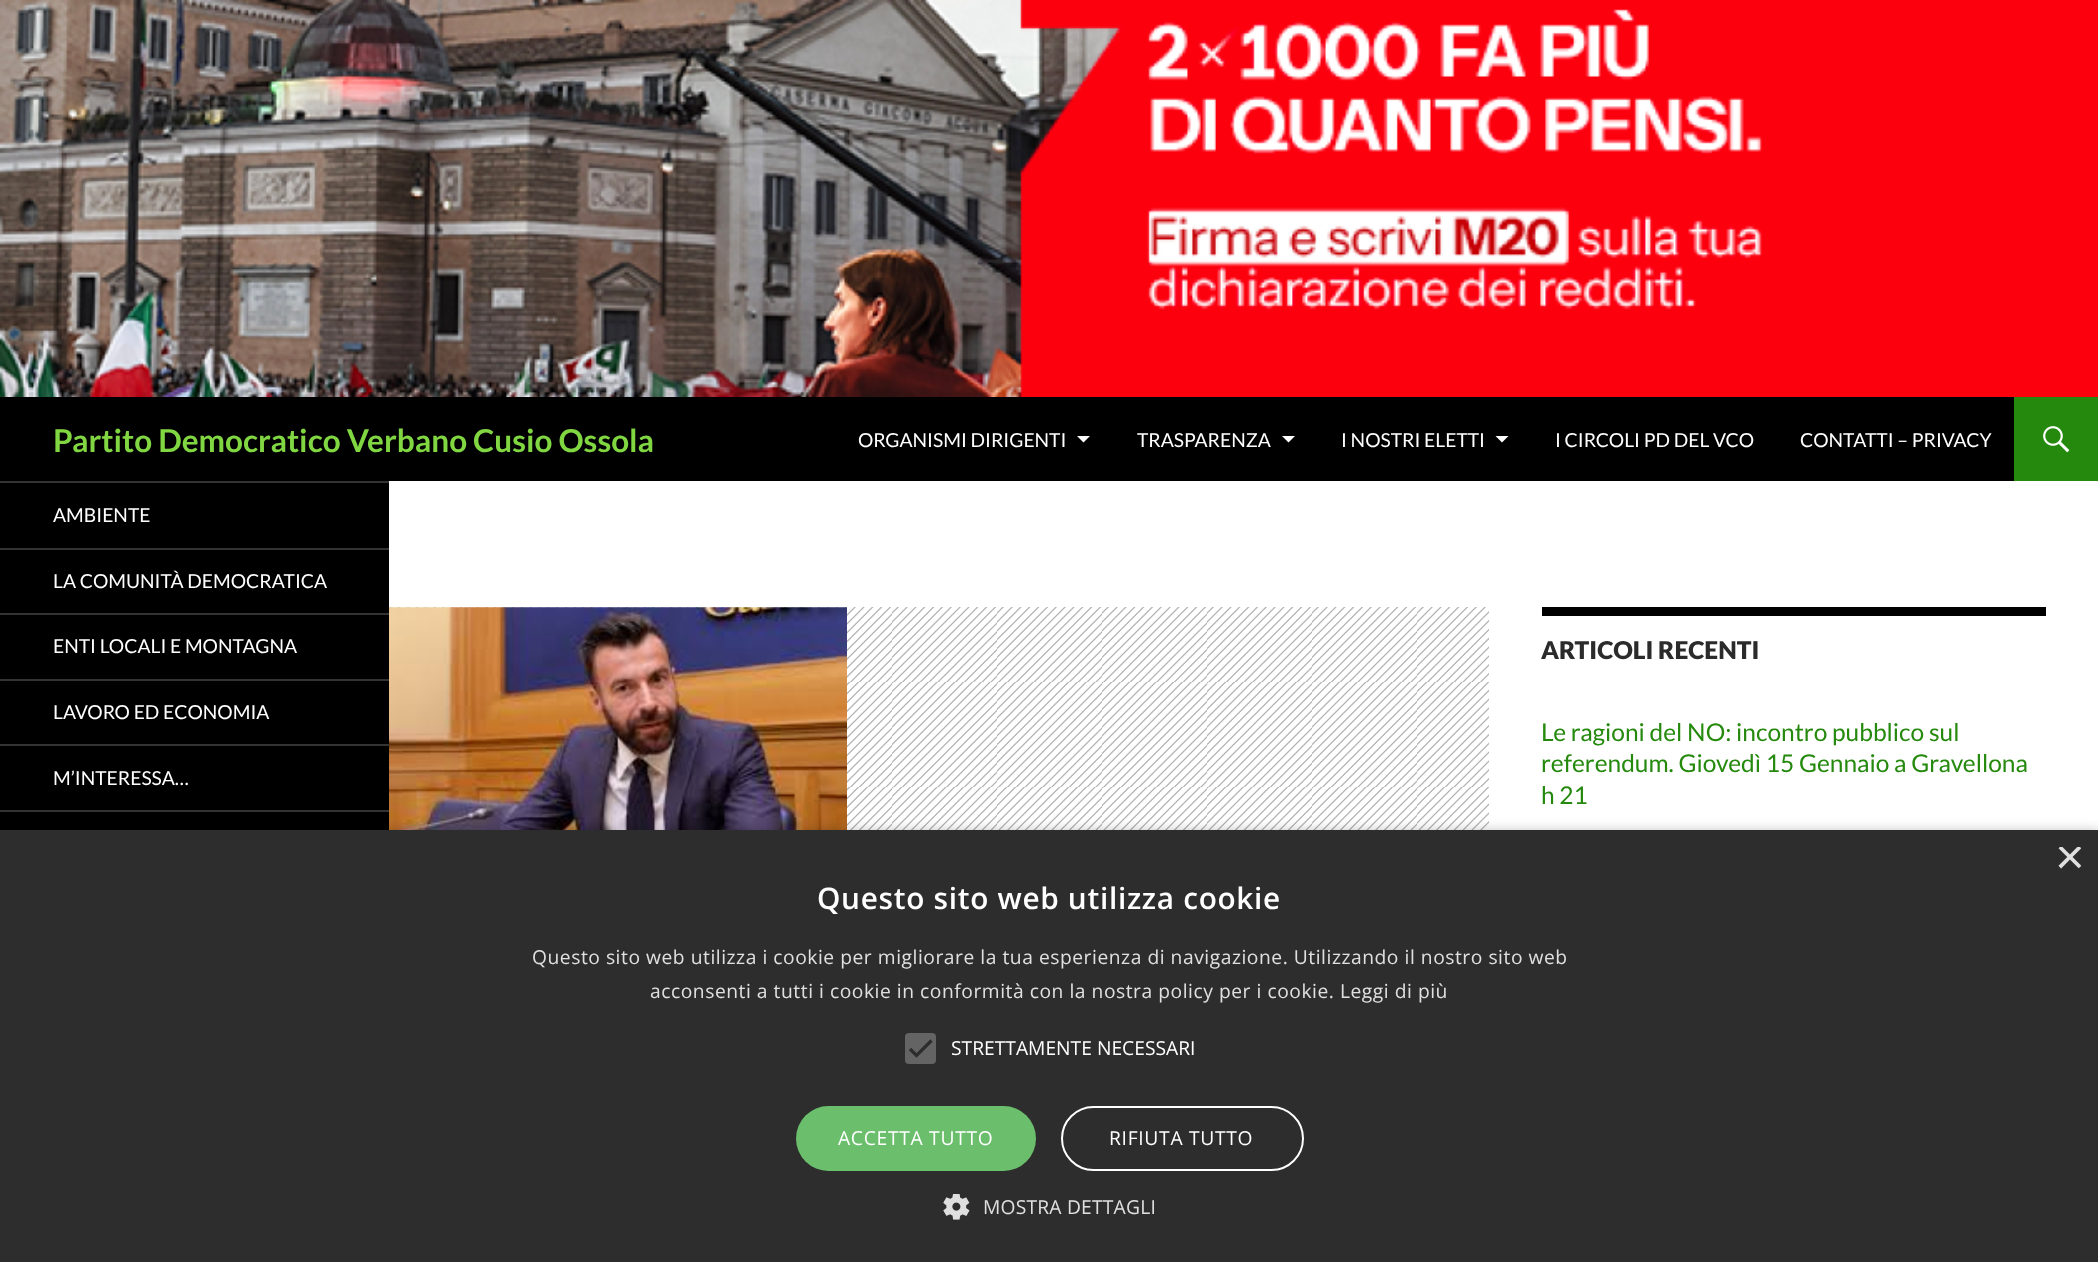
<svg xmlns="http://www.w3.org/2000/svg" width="2098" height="1262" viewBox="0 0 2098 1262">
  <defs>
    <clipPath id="clip1"><path d="M2055 847h26v26H2055z"/></clipPath>
  </defs>
  <rect width="100%" height="100%" fill="#fff"/>
  <image x="0" y="0" width="2098" height="397" href="img/1.png"/>
  <path d="M0 397h2014v84H0z" fill="#000"/>
  <path d="M1077 436L1083.5 442.5L1090 436Z" fill="#fff"/>
  <path d="M1282 436L1288.5 442.5L1295 436Z" fill="#fff"/>
  <path d="M1495.5 436L1502 442.5L1508.5 436Z" fill="#fff"/>
  <path d="M2014 397h84v84H2014z" fill="#24890d"/>
  <image x="2043" y="426" width="27" height="27" href="img/2.png"/>
  <path d="M0 483h389v347H0z" fill="#000"/>
  <path d="M0 481h389v2H0z" fill="#333"/>
  <path d="M0 548h389v2H0z" fill="#333"/>
  <path d="M0 613h389v2H0z" fill="#333"/>
  <path d="M0 679h389v2H0z" fill="#333"/>
  <path d="M0 744h389v2H0z" fill="#333"/>
  <path d="M0 810h389v2H0z" fill="#333"/>
  <path d="M389 607h1100v223H389z" fill="#b2b2b2"/>
  <image x="389" y="607" width="1100" height="223" href="img/3.png"/>
  <image x="389" y="607" width="458" height="223" href="img/4.png"/>
  <path d="M1542 607h504v9H1542z" fill="#000"/>
  <path d="M2 833h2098v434H2z" fill="#00000059" filter="blur(7px)"/>
  <path d="M0 830h2098v432H0z" fill="#2d2d2d"/>
  <rect x="905" y="1033" width="31" height="31" rx="4" fill="#646464"/>
  <path d="M910 1049L916.5 1055.5L931.5 1040.5" fill="none" stroke="#2d2d2d" stroke-width="3.2"/>
  <rect x="796" y="1106" width="240" height="65" rx="32.5" fill="#6bbe6b"/>
  <rect x="1062" y="1107" width="241" height="63" rx="31.5" fill="none" stroke="#fff" stroke-width="2"/>
  <image x="943" y="1194" width="27" height="26" href="img/5.png"/>
  <text x="53" y="452" font-family="Lato" font-size="31.5" font-weight="bold" fill="#81d742">Partito Democratico Verbano Cusio Ossola</text>
  <g font-family="Lato" font-size="19.25" fill="#fff">
    <text x="858" y="447">ORGANISMI DIRIGENTI</text>
    <text x="1137" y="447">TRASPARENZA</text>
    <text x="1341" y="447">I NOSTRI ELETTI</text>
    <text x="1555" y="447">I CIRCOLI PD DEL VCO</text>
    <text x="1800" y="447">CONTATTI – PRIVACY</text>
    <text x="53" y="522">AMBIENTE</text>
    <text x="53" y="588">LA COMUNITÀ DEMOCRATICA</text>
    <text x="53" y="653">ENTI LOCALI E MONTAGNA</text>
    <text x="53" y="719">LAVORO ED ECONOMIA</text>
    <text x="53" y="785">M’INTERESSA…</text>
  </g>
  <text x="1541" y="659" font-family="Lato" font-size="24.5" font-weight="900" fill="#2b2b2b">ARTICOLI RECENTI</text>
  <g font-family="Lato" font-size="24.5" fill="#24890d">
    <text x="1541" y="741">Le ragioni del NO: incontro pubblico sul</text>
    <text x="1541" y="772">referendum. Giovedì 15 Gennaio a Gravellona</text>
    <text x="1541" y="804">h 21</text>
  </g>
  <g clip-path="url(#clip1)">
    <text x="2055" y="874" font-family="Liberation Sans" font-size="51" fill="#e0e0e0">×</text>
  </g>
  <text x="817" y="909" font-family="Open Sans" font-size="29.75" font-weight="600" letter-spacing="0.7" fill="#fff">Questo sito web utilizza cookie</text>
  <g font-family="Open Sans" font-size="19.25" letter-spacing="0.53" fill="#e0e0e0">
    <text x="532" y="964">Questo sito web utilizza i cookie per migliorare la tua esperienza di navigazione. Utilizzando il nostro sito web</text>
    <text x="650" y="998">acconsenti a tutti i cookie in conformità con la nostra policy per i cookie. Leggi di più</text>
  </g>
  <text x="951" y="1055" font-family="Open Sans" font-size="19.25" fill="#fff">STRETTAMENTE NECESSARI</text>
  <g font-family="Open Sans" font-size="19.25" letter-spacing="0.7" fill="#fff">
    <text x="838" y="1145">ACCETTA TUTTO</text>
    <text x="1109" y="1145">RIFIUTA TUTTO</text>
  </g>
  <text x="983" y="1214" font-family="Open Sans" font-size="19.25" letter-spacing="0.2" fill="#e0e0e0">MOSTRA DETTAGLI</text>
</svg>
